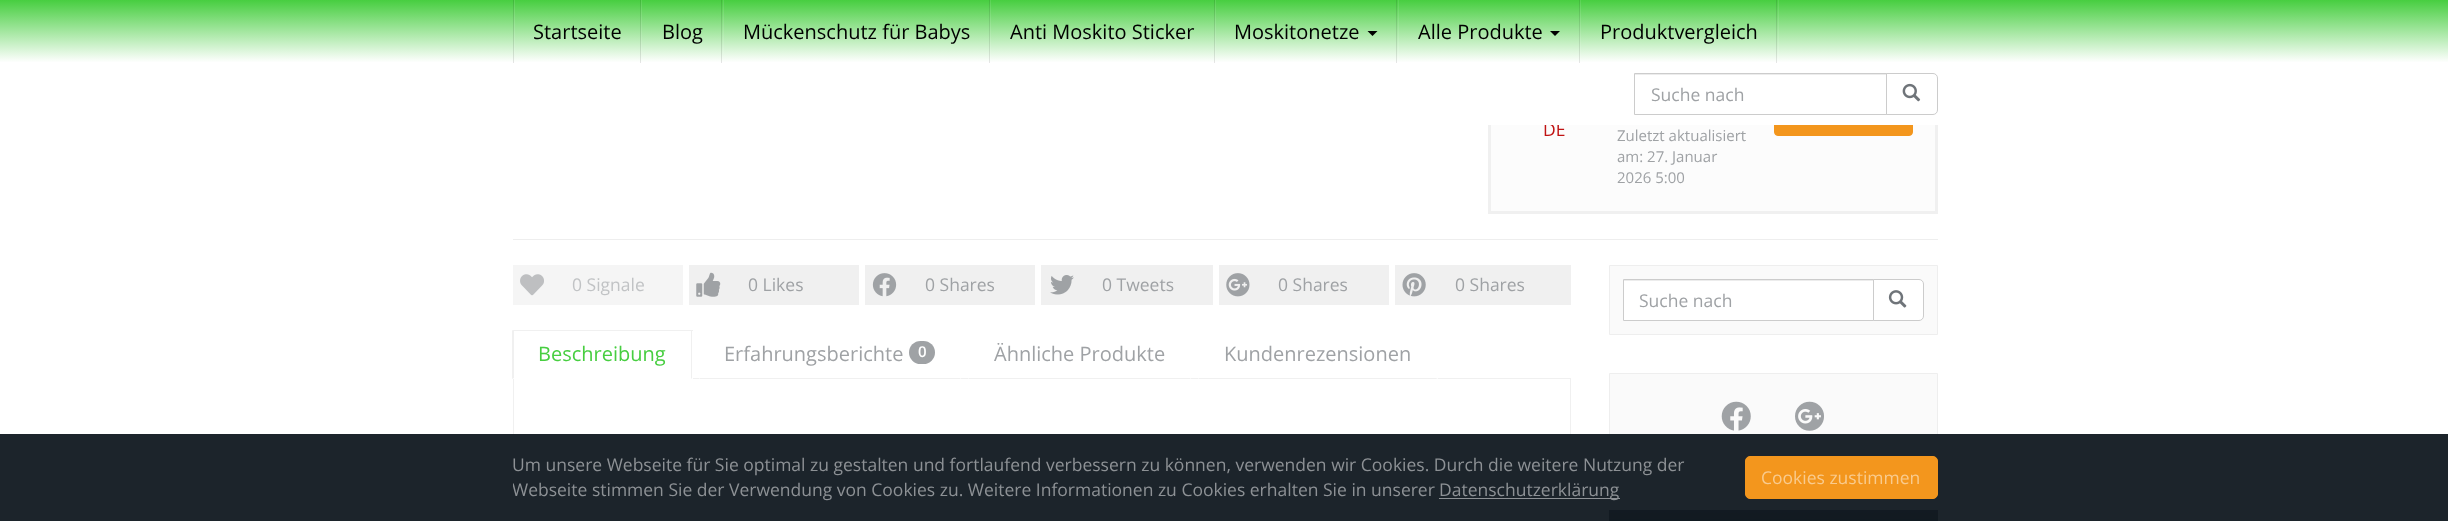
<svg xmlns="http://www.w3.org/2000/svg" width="2448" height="521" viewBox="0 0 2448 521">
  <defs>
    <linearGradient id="g1" gradientUnits="userSpaceOnUse" x1="1773" y1="510" x2="1773" y2="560"><stop offset="0" stop-color="#3f464c"/><stop offset="1" stop-color="#101820"/></linearGradient>
    <linearGradient id="g2" gradientUnits="userSpaceOnUse" x1="1224" y1="0" x2="1224" y2="125"><stop offset="0" stop-color="#47ce40"/><stop offset="0.5" stop-color="#fff"/></linearGradient>
    <linearGradient id="g3" gradientUnits="userSpaceOnUse" x1="1224" y1="0" x2="1224" y2="125"><stop offset="0" stop-color="#59d353"/><stop offset="0.5" stop-color="#fff"/></linearGradient>
    <linearGradient id="g4" gradientUnits="userSpaceOnUse" x1="1224" y1="0" x2="1224" y2="125"><stop offset="0" stop-color="#40b93a"/><stop offset="0.5" stop-color="#e6e6e6"/></linearGradient>
    <clipPath id="clip1"><path d="M513 453h1220v50H513z"/></clipPath>
  </defs>
  <rect width="100%" height="100%" fill="#fff"/>
  <path d="M1491 125h444v86H1491z" fill="#fcfcfc"/>
  <path d="M1489.5 -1.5h447v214H1489.5z" fill="none" stroke="#f0f0f0" stroke-width="3"/>
  <rect x="1774.5" y="99.5" width="138" height="36" rx="3.5" fill="#f3961d" stroke="#f3961d"/>
  <path d="M513 239h1425v1H513z" fill="#eee"/>
  <path d="M513 265h170v40H513z" fill="#f5f5f5"/>
  <image x="520" y="274" width="24" height="22" href="img/2.png"/>
  <path d="M689 265h170v40H689z" fill="#f0f0f0"/>
  <image x="696" y="272" width="25" height="25" href="img/3.png"/>
  <path d="M865 265h170v40H865z" fill="#f0f0f0"/>
  <image x="872" y="273" width="25" height="24" href="img/4.png"/>
  <path d="M1041 265h172v40H1041z" fill="#f0f0f0"/>
  <image x="1050" y="275" width="24" height="20" href="img/5.png"/>
  <path d="M1219 265h170v40H1219z" fill="#f0f0f0"/>
  <image x="1226" y="273" width="24" height="24" href="img/6.png"/>
  <path d="M1395 265h176v40H1395z" fill="#f0f0f0"/>
  <image x="1402" y="273" width="24" height="24" href="img/7.png"/>
  <path d="M693 378h878v1H693z" fill="#f0f0f0"/>
  <path d="M513 330h180v1H513z" fill="#f0f0f0"/>
  <path d="M692 330V379L691 378V331Z" fill="#f0f0f0"/>
  <path d="M512 379V330L514 331V378Z" fill="#f0f0f0"/>
  <path d="M699 378h262v1H699z" fill="#fff"/>
  <path d="M961 379H699L700 378H960Z" fill="#f0f0f0"/>
  <rect x="909" y="341" width="26" height="23" rx="11.5" fill="#9fa2a5"/>
  <path d="M968 378h223v1H968z" fill="#fff"/>
  <path d="M1191 379H968L969 378H1190Z" fill="#f0f0f0"/>
  <path d="M1198 378h240v1H1198z" fill="#fff"/>
  <path d="M1438 379H1198L1199 378H1436Z" fill="#f0f0f0"/>
  <path d="M1570 379h1v142H1570z" fill="#f0f0f0"/>
  <path d="M513 379h1v142H513z" fill="#f0f0f0"/>
  <path d="M1609.5 265.5h328v69H1609.5z" fill="#fafafa" stroke="#eee"/>
  <path d="M1624 281h249v39H1624z" fill="#fff"/>
  <path d="M1624 280h249v1H1624z" fill="#ececec"/>
  <path d="M1623.5 279.5h250v41H1623.5z" fill="none" stroke="#ccc"/>
  <path d="M1873.5 279.5H1919C1921.5 279.5 1923.5 281.5 1923.5 284V316C1923.5 318.5 1921.5 320.5 1919 320.5H1873.5Z" fill="#fff" stroke="#ccc"/>
  <image x="1888" y="290" width="19" height="18" href="img/8.png"/>
  <path d="M1609.5 373.5h328v99H1609.5z" fill="#fafafa" stroke="#eee"/>
  <image x="1721" y="401" width="30" height="30" href="img/9.png"/>
  <image x="1795" y="401" width="29" height="30" href="img/10.png"/>
  <path d="M1609 510h329v11H1609z" fill="url(#g1)"/>
  <path d="M0 434h2448v87H0z" fill="#101820f2"/>
  <path d="M1439 498h181v1H1439z" fill="#8d9195"/>
  <rect x="1745.5" y="456.5" width="192" height="42" rx="4.5" fill="#f3961d" stroke="#f3961d"/>
  <text x="1543" y="136" font-family="Open Sans" font-size="17.5" fill="#c01313">DE</text>
  <path d="M0 0h2448v125H0z" fill="url(#g2)"/>
  <path d="M1635 74h251v1H1635z" fill="#ececec"/>
  <path d="M1634.5 73.5h253v41H1634.5z" fill="none" stroke="#ccc"/>
  <path d="M1886.5 73.5H1933C1935.5 73.5 1937.5 75.5 1937.5 78V110C1937.5 112.5 1935.5 114.5 1933 114.5H1886.5Z" fill="#fff" stroke="#ccc"/>
  <image x="1902" y="83" width="19" height="19" href="img/1.png"/>
  <text x="1651" y="101" font-family="Open Sans" font-size="17.5" fill="#9fa2a5">Suche nach</text>
  <text x="1600" y="39" font-family="Open Sans" font-size="20" fill="#000">Produktvergleich</text>
  <path d="M1550 31H1560L1555 36Z" fill="#000"/>
  <text x="1418" y="39" font-family="Open Sans" font-size="20" fill="#000">Alle Produkte</text>
  <path d="M1367.5 31H1377.5L1372.5 36Z" fill="#000"/>
  <g font-family="Open Sans" font-size="20" fill="#000">
    <text x="1234" y="39">Moskitonetze</text>
    <text x="1010" y="39">Anti Moskito Sticker</text>
    <text x="743" y="39">Mückenschutz für Babys</text>
  </g>
  <path d="M723 0h1v54H723z" fill="#ffffff1a"/>
  <text x="662" y="39" font-family="Open Sans" font-size="20" fill="#000">Blog</text>
  <path d="M641 0h1v54H641z" fill="#ffffff1a"/>
  <path d="M721 0h1v63H721z" fill="#0000001a"/>
  <text x="533" y="39" font-family="Open Sans" font-size="20" fill="#000">Startseite</text>
  <path d="M514 0h1v54H514z" fill="#ffffff1a"/>
  <path d="M640 0h1v63H640z" fill="#0000001a"/>
  <path d="M513 0h1v63H513z" fill="#0000001a"/>
  <path d="M1778 0h1v63H1778z" fill="url(#g3)"/>
  <path d="M989 0h1v63H989z" fill="url(#g4)"/>
  <path d="M1214 0h1v63H1214z" fill="url(#g4)"/>
  <path d="M990 0h1v63H990z" fill="url(#g3)"/>
  <path d="M1396 0h1v63H1396z" fill="url(#g4)"/>
  <path d="M1215 0h1v63H1215z" fill="url(#g3)"/>
  <path d="M1579 0h1v63H1579z" fill="url(#g4)"/>
  <path d="M1398 0h1v63H1398z" fill="url(#g3)"/>
  <path d="M1776 0h1v63H1776z" fill="url(#g4)"/>
  <path d="M1580 0h1v63H1580z" fill="url(#g3)"/>
  <g font-family="Open Sans" font-size="15" fill="#9fa2a5">
    <text x="1617" y="141">Zuletzt aktualisiert</text>
    <text x="1617" y="162">am: 27. Januar</text>
    <text x="1617" y="183">2026 5:00</text>
  </g>
  <text x="572" y="291" font-family="Open Sans" font-size="17.5" fill="#c1c3c5">0 Signale</text>
  <g font-family="Open Sans" font-size="17.5" fill="#9fa2a5">
    <text x="748" y="291">0 Likes</text>
    <text x="925" y="291">0 Shares</text>
    <text x="1102" y="291">0 Tweets</text>
    <text x="1278" y="291">0 Shares</text>
    <text x="1455" y="291">0 Shares</text>
  </g>
  <text x="538" y="361" font-family="Open Sans" font-size="20" fill="#47ce40">Beschreibung</text>
  <text x="724" y="361" font-family="Open Sans" font-size="20" fill="#9fa2a5">Erfahrungsberichte</text>
  <text x="918" y="357" font-family="Open Sans" font-size="15" font-weight="600" fill="#fff">0</text>
  <g font-family="Open Sans" font-size="20" fill="#9fa2a5">
    <text x="994" y="361">Ähnliche Produkte</text>
    <text x="1224" y="361">Kundenrezensionen</text>
  </g>
  <text x="1639" y="307" font-family="Open Sans" font-size="17.5" fill="#9fa2a5">Suche nach</text>
  <text x="512" y="471" font-family="Open Sans" font-size="17.5" fill="#8d9195">Um unsere Webseite für Sie optimal zu gestalten und fortlaufend verbessern zu können, verwenden wir Cookies. Durch die weitere Nutzung der</text>
  <g clip-path="url(#clip1)">
    <text x="512" y="496" font-family="Open Sans" font-size="17.5" fill="#8d9195">Webseite stimmen Sie der Verwendung von Cookies zu. Weitere Informationen zu Cookies erhalten Sie in unserer</text>
  </g>
  <text x="1439" y="496" font-family="Open Sans" font-size="17.5" fill="#8d9195">Datenschutzerklärung</text>
  <text x="1761" y="484" font-family="Open Sans" font-size="17.5" fill="#f9cb8e">Cookies zustimmen</text>
</svg>
